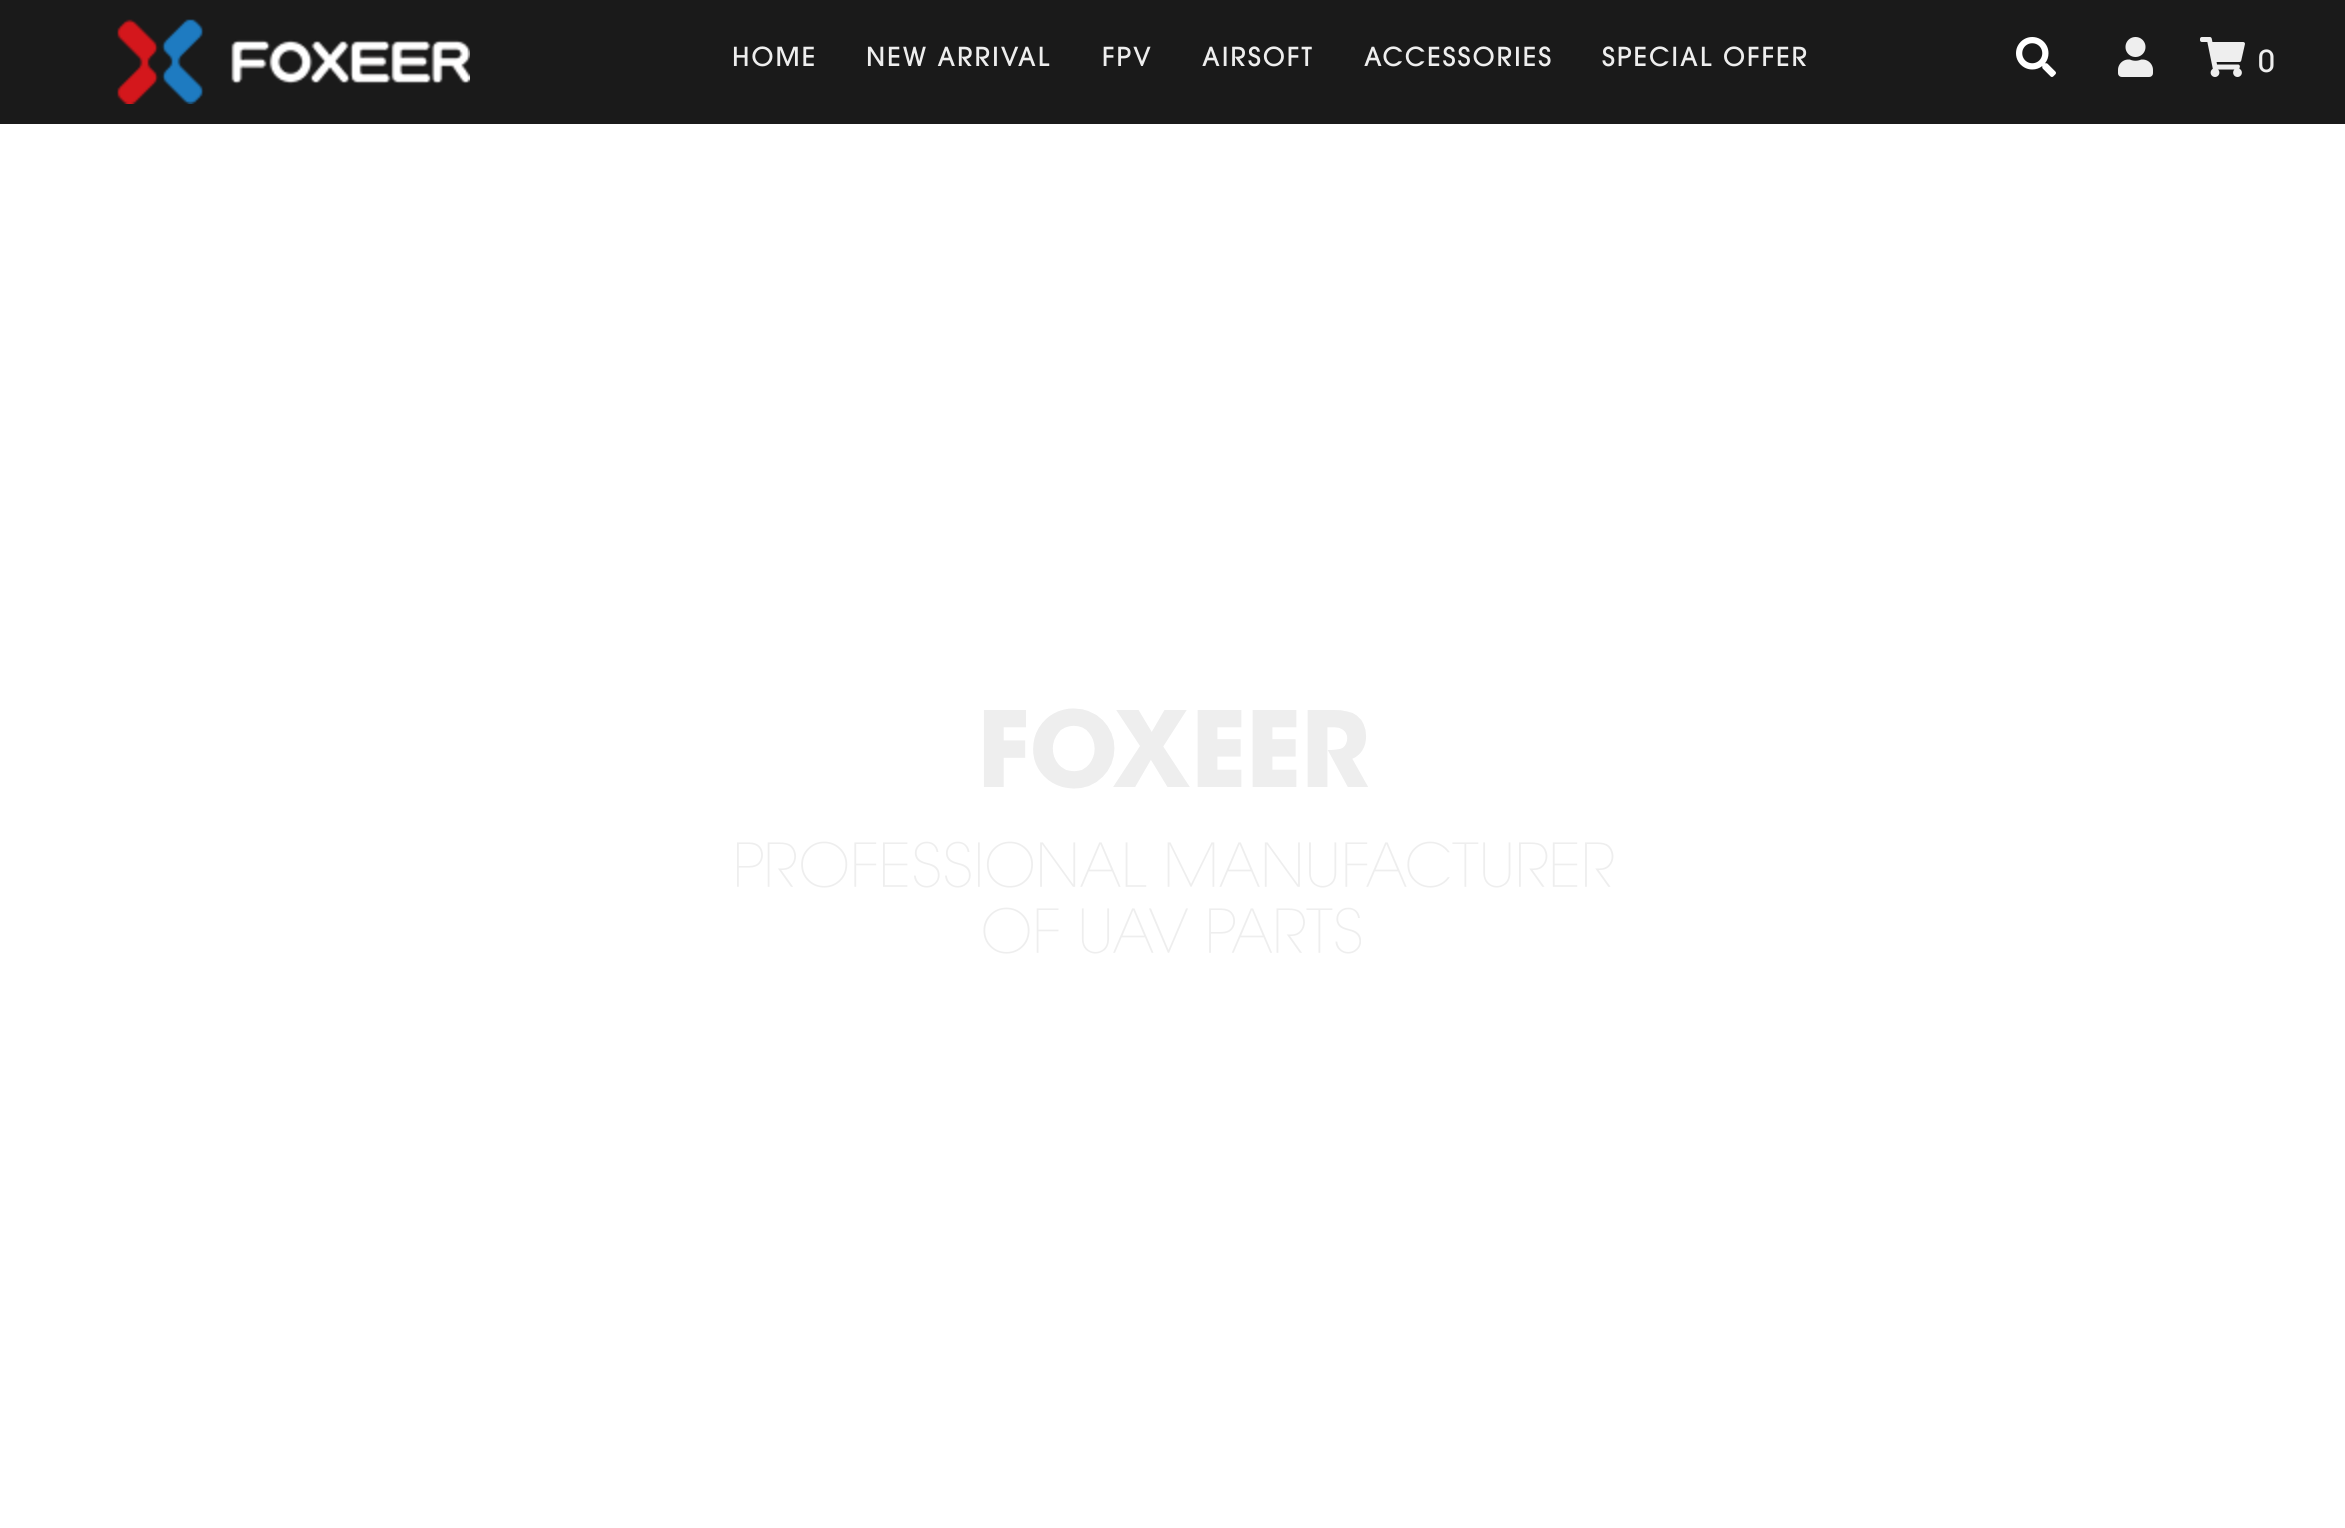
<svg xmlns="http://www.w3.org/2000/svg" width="2345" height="1528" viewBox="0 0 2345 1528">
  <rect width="100%" height="100%" fill="#fff"/>
  <path d="M0 0h2345v124H0z" fill="#1a1a1a"/>
  <image x="117" y="19" width="353" height="85" href="img/1.png"/>
  <image x="733" y="46" width="81" height="21" href="img/2.png"/>
  <image x="867" y="46" width="183" height="20" href="img/3.png"/>
  <image x="1103" y="46" width="48" height="20" href="img/4.png"/>
  <image x="1202" y="46" width="110" height="21" href="img/5.png"/>
  <image x="1364" y="46" width="187" height="21" href="img/6.png"/>
  <image x="1602" y="46" width="205" height="21" href="img/7.png"/>
  <image x="2016" y="37" width="40" height="40" href="img/8.png"/>
  <image x="2118" y="37" width="35" height="40" href="img/9.png"/>
  <image x="2200" y="37" width="45" height="40" href="img/10.png"/>
  <image x="2259" y="49" width="15" height="24" href="img/11.png"/>
  <image x="737" y="841" width="877" height="47" href="img/12.png"/>
  <image x="983" y="907" width="378" height="47" href="img/13.png"/>
  <text x="977" y="787" font-family="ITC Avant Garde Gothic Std" font-size="104" font-weight="bold" fill="#eee">FOXEER</text>
</svg>
